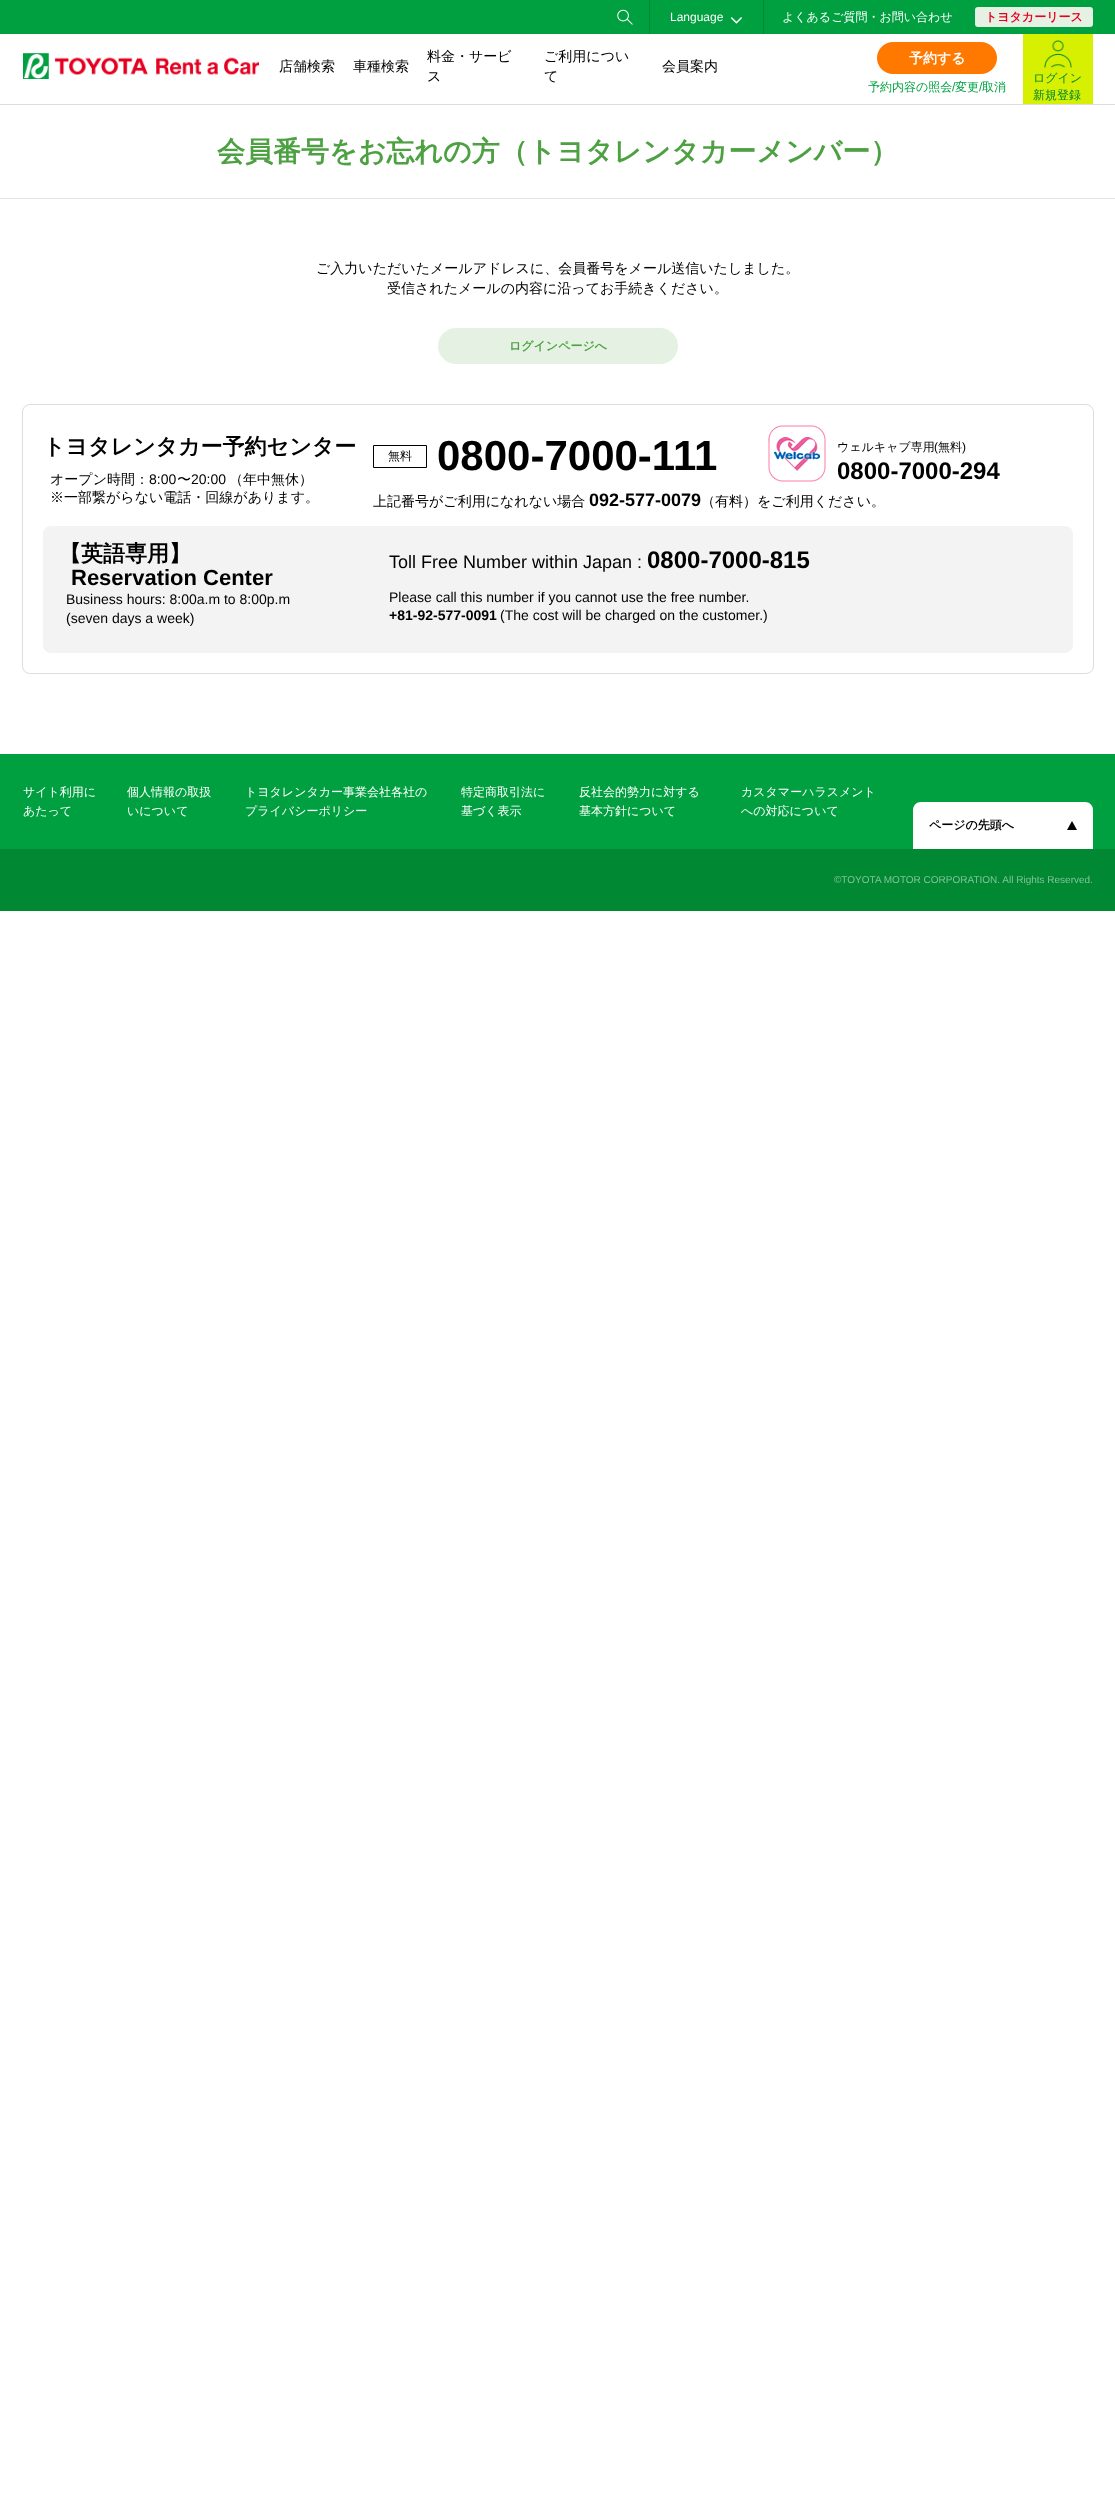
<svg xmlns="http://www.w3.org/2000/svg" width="1115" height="2518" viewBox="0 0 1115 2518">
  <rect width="100%" height="100%" fill="#fff"/>
  <path d="M0 0h1115v34H0z" fill="#00a040"/>
  <image x="617" y="9" width="16" height="16" href="img/1.png"/>
  <path d="M763 0h1v34H763z" fill="#018832"/>
  <path d="M649 0h1v34H649z" fill="#018832"/>
  <image x="730" y="17" width="12" height="7" href="img/2.png"/>
  <rect x="975" y="7" width="118" height="20" rx="3" fill="#e5f1e3"/>
  <path d="M0 104h1115v1H0z" fill="#ddd"/>
  <image x="23" y="53" width="236" height="26" href="img/3.png"/>
  <rect x="877" y="42" width="120" height="32" rx="16" fill="#ff7900"/>
  <path d="M1023 34h70v70H1023z" fill="#d7ef00"/>
  <image x="1044" y="40" width="28" height="28" href="img/4.png"/>
  <path d="M0 198h1115v1H0z" fill="#e4e4e4"/>
  <rect x="438" y="328" width="240" height="36" rx="18" fill="#e5f1e3"/>
  <rect x="22.5" y="404.5" width="1071" height="269" rx="7.5" fill="none" stroke="#ddd"/>
  <path d="M373.5 445.5h53v22H373.5z" fill="none" stroke="#000"/>
  <image x="768" y="425" width="58" height="57" href="img/5.png"/>
  <rect x="43" y="526" width="1030" height="127" rx="8" fill="#f3f3f3"/>
  <path d="M0 754h1115v95H0z" fill="#00a040"/>
  <path d="M921 802H1085C1089.5 802 1093 805.5 1093 810V849H913V810C913 805.5 916.5 802 921 802Z" fill="#fff"/>
  <path d="M1077 830H1067L1072 821Z" fill="#000"/>
  <path d="M0 849h1115v62H0z" fill="#018832"/>
  <text x="670" y="21" font-family="Liberation Sans" font-size="12" fill="#fff">Language</text>
  <text x="782" y="21" font-family="WenQuanYi Zen Hei" font-size="12" font-weight="500" fill="#fff">よくあるご質問・お問い合わせ</text>
  <text x="985" y="21" font-family="WenQuanYi Zen Hei" font-size="12" font-weight="bold" fill="#e60020">トヨタカーリース</text>
  <g font-family="WenQuanYi Zen Hei" font-size="14" font-weight="500" fill="#000">
    <text x="279" y="71">店舗検索</text>
    <text x="353" y="71">車種検索</text>
    <text x="427" y="61">料金・サービ</text>
    <text x="427" y="81">ス</text>
    <text x="544" y="61">ご利用につい</text>
    <text x="544" y="81">て</text>
    <text x="662" y="71">会員案内</text>
  </g>
  <text x="909" y="63" font-family="WenQuanYi Zen Hei" font-size="14" font-weight="bold" fill="#fff">予約する</text>
  <text x="868" y="91" font-family="WenQuanYi Zen Hei" font-size="12" font-weight="500" fill="#00a040">予約内容の照会</text>
  <text x="952" y="91" font-family="Liberation Sans" font-size="12" fill="#00a040">/</text>
  <text x="955" y="91" font-family="WenQuanYi Zen Hei" font-size="12" font-weight="500" fill="#00a040">変更</text>
  <text x="979" y="91" font-family="Liberation Sans" font-size="12" fill="#00a040">/</text>
  <text x="982" y="91" font-family="WenQuanYi Zen Hei" font-size="12" font-weight="500" fill="#00a040">取消</text>
  <g font-family="WenQuanYi Zen Hei" font-size="12" font-weight="500" fill="#018832">
    <text x="1033" y="82">ログイン</text>
    <text x="1033" y="99">新規登録</text>
  </g>
  <text x="217" y="161" font-family="WenQuanYi Zen Hei" font-size="28" font-weight="bold" fill="#4ea142">会員番号をお忘れの方（トヨタレンタカーメンバー）</text>
  <g font-family="WenQuanYi Zen Hei" font-size="14" font-weight="500" fill="#000">
    <text x="316" y="273">ご入力いただいたメールアドレスに、会員番号をメール送信いたしました。</text>
    <text x="387" y="293">受信されたメールの内容に沿ってお手続きください。</text>
  </g>
  <text x="509" y="350" font-family="WenQuanYi Zen Hei" font-size="12" font-weight="bold" fill="#4ea142">ログインページへ</text>
  <text x="43" y="454" font-family="WenQuanYi Zen Hei" font-size="22" font-weight="bold" fill="#000">トヨタレンタカー予約センター</text>
  <text x="50" y="484" font-family="WenQuanYi Zen Hei" font-size="14" font-weight="500" fill="#000">オープン時間：</text>
  <text x="149" y="484" font-family="Liberation Sans" font-size="14" fill="#000">8:00</text>
  <text x="177" y="484" font-family="WenQuanYi Zen Hei" font-size="14" font-weight="500" fill="#000">〜</text>
  <text x="191" y="484" font-family="Liberation Sans" font-size="14" fill="#000">20:00</text>
  <g font-family="WenQuanYi Zen Hei" font-size="14" font-weight="500" fill="#000">
    <text x="229" y="484">（年中無休）</text>
    <text x="50" y="502">※一部繋がらない電話・回線があります。</text>
  </g>
  <text x="388" y="460" font-family="WenQuanYi Zen Hei" font-size="12" font-weight="500" fill="#000">無料</text>
  <text x="437" y="470" font-family="Liberation Sans" font-size="42" font-weight="bold" fill="#000">0800-7000-111</text>
  <text x="837" y="451" font-family="WenQuanYi Zen Hei" font-size="12" font-weight="500" fill="#000">ウェルキャブ専用</text>
  <text x="934" y="451" font-family="Liberation Sans" font-size="12" fill="#000">(</text>
  <text x="938" y="451" font-family="WenQuanYi Zen Hei" font-size="12" font-weight="500" fill="#000">無料</text>
  <text x="962" y="451" font-family="Liberation Sans" font-size="12" fill="#000">)</text>
  <text x="837" y="479" font-family="Liberation Sans" font-size="24" font-weight="bold" fill="#000">0800-7000-294</text>
  <text x="373" y="506" font-family="WenQuanYi Zen Hei" font-size="14" font-weight="500" fill="#000">上記番号がご利用になれない場合</text>
  <text x="589" y="506" font-family="Liberation Sans" font-size="18" font-weight="bold" fill="#000">092-577-0079</text>
  <text x="701" y="506" font-family="WenQuanYi Zen Hei" font-size="14" font-weight="500" fill="#000">（有料）をご利用ください。</text>
  <text x="59" y="561" font-family="WenQuanYi Zen Hei" font-size="22" font-weight="bold" fill="#000">【英語専用】</text>
  <text x="71" y="585" font-family="Liberation Sans" font-size="22" font-weight="bold" fill="#000">Reservation Center</text>
  <g font-family="Liberation Sans" font-size="14" fill="#000">
    <text x="66" y="604">Business hours: 8:00a.m to 8:00p.m</text>
    <text x="66" y="623">(seven days a week)</text>
  </g>
  <text x="389" y="568" font-family="Liberation Sans" font-size="18" fill="#000">Toll Free Number within Japan :</text>
  <text x="647" y="568" font-family="Liberation Sans" font-size="24" font-weight="bold" fill="#000">0800-7000-815</text>
  <text x="389" y="602" font-family="Liberation Sans" font-size="14" fill="#000">Please call this number if you cannot use the free number.</text>
  <text x="389" y="620" font-family="Liberation Sans" font-size="14" font-weight="bold" fill="#000">+81-92-577-0091</text>
  <text x="500" y="620" font-family="Liberation Sans" font-size="14" fill="#000">(The cost will be charged on the customer.)</text>
  <g font-family="WenQuanYi Zen Hei" font-size="12" font-weight="500" fill="#fff">
    <text x="23" y="796">サイト利用に</text>
    <text x="23" y="815">あたって</text>
    <text x="127" y="796">個人情報の取扱</text>
    <text x="127" y="815">いについて</text>
    <text x="245" y="796">トヨタレンタカー事業会社各社の</text>
    <text x="245" y="815">プライバシーポリシー</text>
    <text x="461" y="796">特定商取引法に</text>
    <text x="461" y="815">基づく表示</text>
    <text x="579" y="796">反社会的勢力に対する</text>
    <text x="579" y="815">基本方針について</text>
    <text x="741" y="796">カスタマーハラスメント</text>
    <text x="741" y="815">への対応について</text>
  </g>
  <text x="929" y="829" font-family="WenQuanYi Zen Hei" font-size="12" font-weight="bold" fill="#000">ページの先頭へ</text>
  <text x="834" y="883" font-family="Liberation Sans" font-size="10" fill="#80c499">©TOYOTA MOTOR CORPORATION. All Rights Reserved.</text>
</svg>
